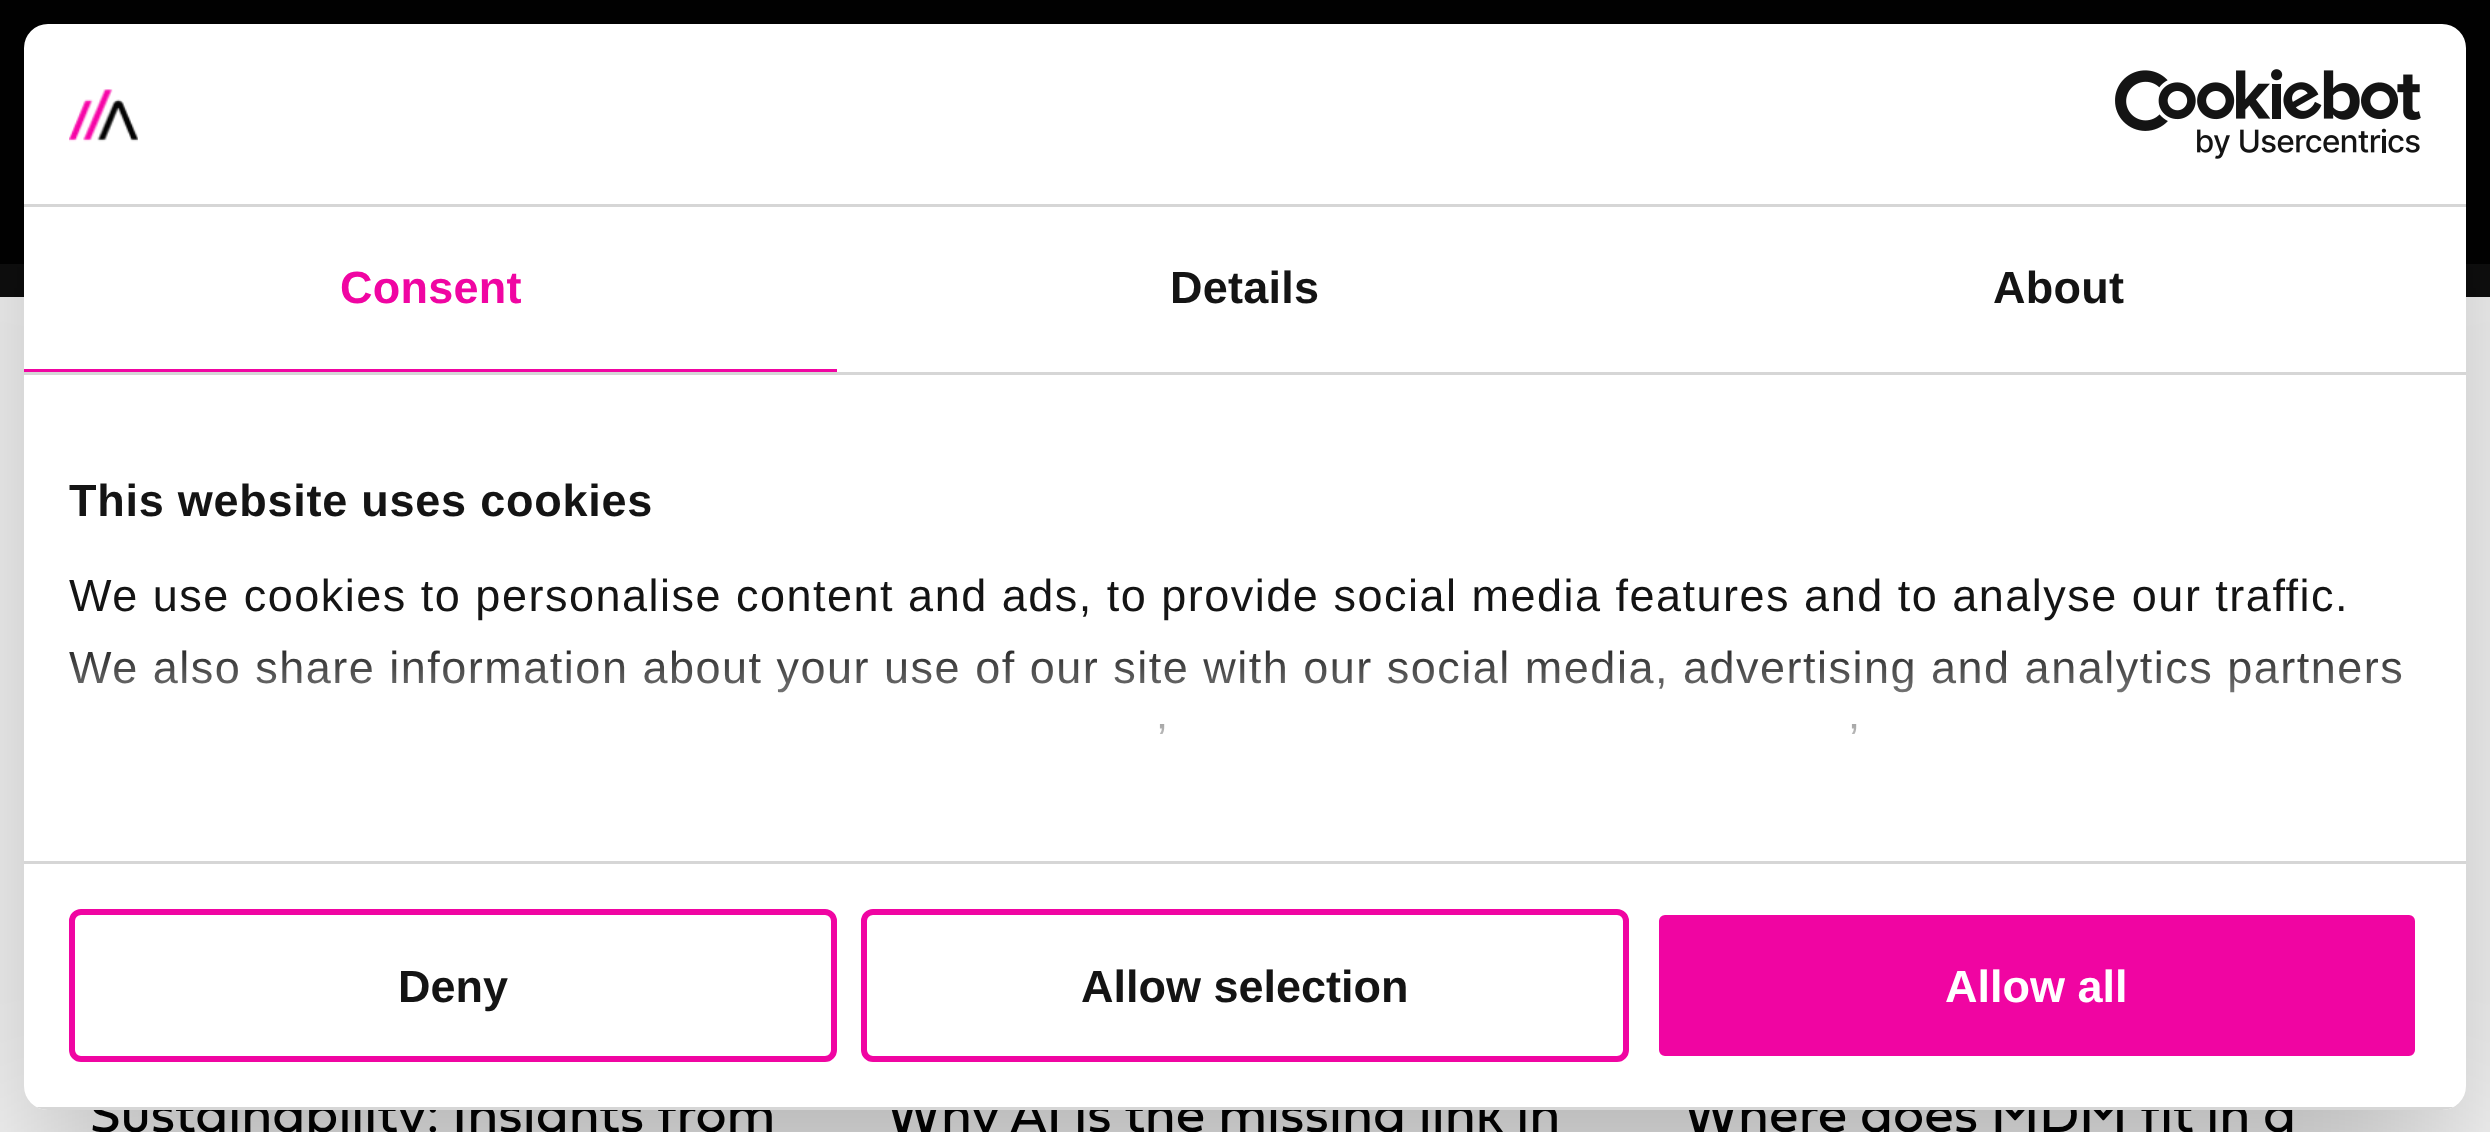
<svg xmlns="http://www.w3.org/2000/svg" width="2490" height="1132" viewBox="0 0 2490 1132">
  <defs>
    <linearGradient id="g1" gradientUnits="userSpaceOnUse" x1="1226" y1="861" x2="1226" y2="636"><stop offset="0" stop-color="#fff"/><stop offset="0.5" stop-color="#fff" stop-opacity="0.8"/><stop offset="1" stop-color="#fff" stop-opacity="0"/></linearGradient>
    <clipPath id="clip1"><rect x="24" y="24" width="2442" height="1086" rx="24"/></clipPath>
  </defs>
  <rect width="100%" height="100%" fill="#fff"/>
  <path d="M0 264h2490v33H0z" fill="#0f0f0f"/>
  <path d="M0 0h2490v264H0z" fill="#020202"/>
  <rect x="24" y="120" width="2442" height="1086" rx="24" fill="#0000004d" filter="blur(102px)"/>
  <g font-family="'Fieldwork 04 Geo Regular'" font-size="54" fill="#020202">
    <text x="90" y="1132">Sustainability: Insights from</text>
    <text x="887" y="1132">Why AI is the missing link in</text>
    <text x="1684" y="1132">Where does MDM fit in a</text>
  </g>
  <rect x="24" y="24" width="2442" height="1086" rx="24" fill="#fff"/>
  <g font-family="Liberation Sans" font-size="45" letter-spacing="1.5" fill="#141414">
    <text x="1849" y="755">’</text>
    <text x="1157" y="755">’</text>
    <text x="69" y="683">We also share information about your use of our site with our social media, advertising and analytics partners</text>
  </g>
  <path d="M69 650h2333v85H69z" fill="url(#g1)"/>
  <rect x="1656" y="912" width="762" height="147" rx="9" fill="#f005a2" stroke="#fff" stroke-width="6"/>
  <text x="1945" y="1002" font-family="Liberation Sans" font-size="45" font-weight="bold" fill="#fff">Allow all</text>
  <rect x="864" y="912" width="762" height="147" rx="9" fill="none" stroke="#f005a2" stroke-width="6"/>
  <text x="1081" y="1002" font-family="Liberation Sans" font-size="45" font-weight="bold" fill="#141414">Allow selection</text>
  <rect x="72" y="912" width="762" height="147" rx="9" fill="none" stroke="#f005a2" stroke-width="6"/>
  <text x="398" y="1002" font-family="Liberation Sans" font-size="45" font-weight="bold" fill="#141414">Deny</text>
  <g clip-path="url(#clip1)">
    <path d="M36 1107h2418v3H36z" fill="#d6d6d6"/>
  </g>
  <text x="69" y="611" font-family="Liberation Sans" font-size="45" letter-spacing="1.5" fill="#141414">We use cookies to personalise content and ads, to provide social media features and to analyse our traffic.</text>
  <text x="69" y="516" font-family="Liberation Sans" font-size="45" font-weight="bold" letter-spacing="0.75" fill="#141414">This website uses cookies</text>
  <path d="M24 861h2442v3H24z" fill="#d6d6d6"/>
  <g font-family="Liberation Sans" font-size="45" font-weight="bold" letter-spacing="0.25" fill="#141414">
    <text x="1993" y="303">About</text>
    <text x="1170" y="303">Details</text>
  </g>
  <text x="340" y="303" font-family="Liberation Sans" font-size="45" font-weight="bold" letter-spacing="0.25" fill="#f005a2">Consent</text>
  <path d="M24 369h813v3H24z" fill="#f005a2"/>
  <path d="M24 372h2442v3H24z" fill="#d6d6d6"/>
  <image x="2115" y="69" width="306" height="90" href="img/2.png"/>
  <image x="69" y="89" width="69" height="53" href="img/1.png"/>
  <path d="M24 204h2442v3H24z" fill="#d6d6d6"/>
</svg>
